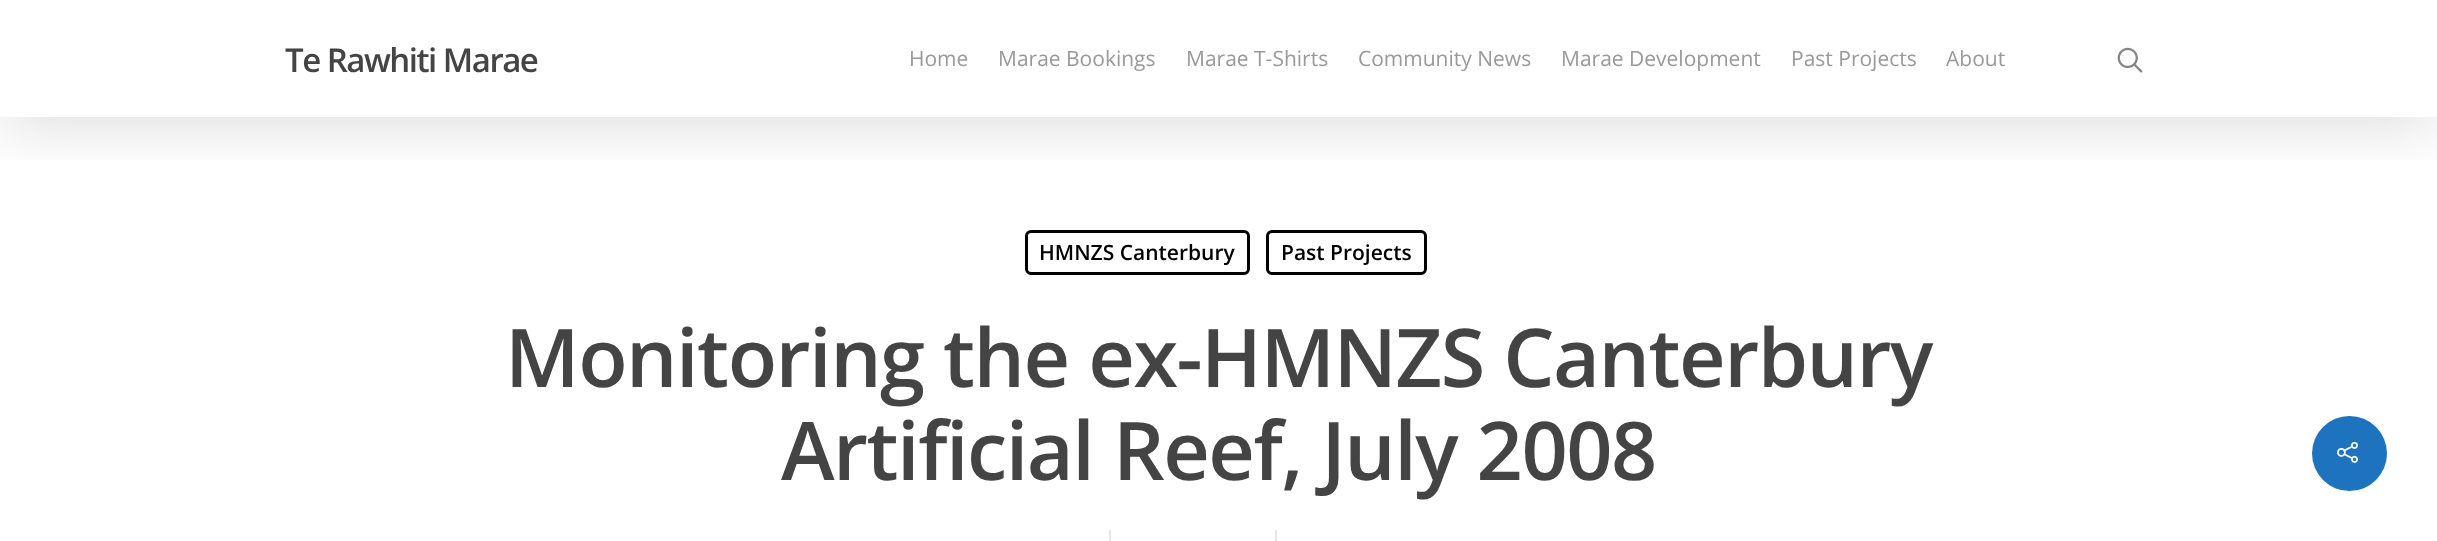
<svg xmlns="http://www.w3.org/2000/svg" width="2437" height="541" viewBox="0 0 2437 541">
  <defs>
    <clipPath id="clip1"><path d="M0 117h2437v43H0z"/></clipPath>
  </defs>
  <rect width="100%" height="100%" fill="#fff"/>
  <g clip-path="url(#clip1)">
    <path d="M0 5h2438v117H0z" fill="#00000026" filter="blur(34px)"/>
  </g>
  <image x="2117" y="47" width="26" height="26" href="img/1.png"/>
  <rect x="1026.5" y="231.5" width="222" height="42" rx="4.5" fill="none" stroke="#000" stroke-width="3"/>
  <rect x="1267.5" y="231.5" width="158" height="42" rx="4.5" fill="none" stroke="#000" stroke-width="3"/>
  <path d="M1109 530h2v11H1109z" fill="#e6e6e6"/>
  <path d="M1275 530h2v11H1275z" fill="#e6e6e6"/>
  <circle cx="2349.5" cy="453.5" r="37.5" fill="#1e73be"/>
  <image x="2337" y="441" width="21" height="22" href="img/2.png"/>
  <text x="285" y="72" font-family="Open Sans" font-size="33" font-weight="600" letter-spacing="-1.5" fill="#444">Te Rawhiti Marae</text>
  <g font-family="Open Sans" font-size="21" fill="#999">
    <text x="909" y="66">Home</text>
    <text x="998" y="66">Marae Bookings</text>
    <text x="1186" y="66">Marae T-Shirts</text>
    <text x="1358" y="66">Community News</text>
    <text x="1561" y="66">Marae Development</text>
    <text x="1791" y="66">Past Projects</text>
    <text x="1946" y="66">About</text>
  </g>
  <g font-family="Open Sans" font-size="21" font-weight="600" fill="#000">
    <text x="1039" y="260">HMNZS Canterbury</text>
    <text x="1281" y="260">Past Projects</text>
  </g>
  <g font-family="Open Sans" font-size="81" font-weight="600" letter-spacing="-1.5" fill="#444">
    <text x="505" y="387">Monitoring the ex-HMNZS Canterbury</text>
    <text x="781" y="480">Artificial Reef, July 2008</text>
  </g>
</svg>
